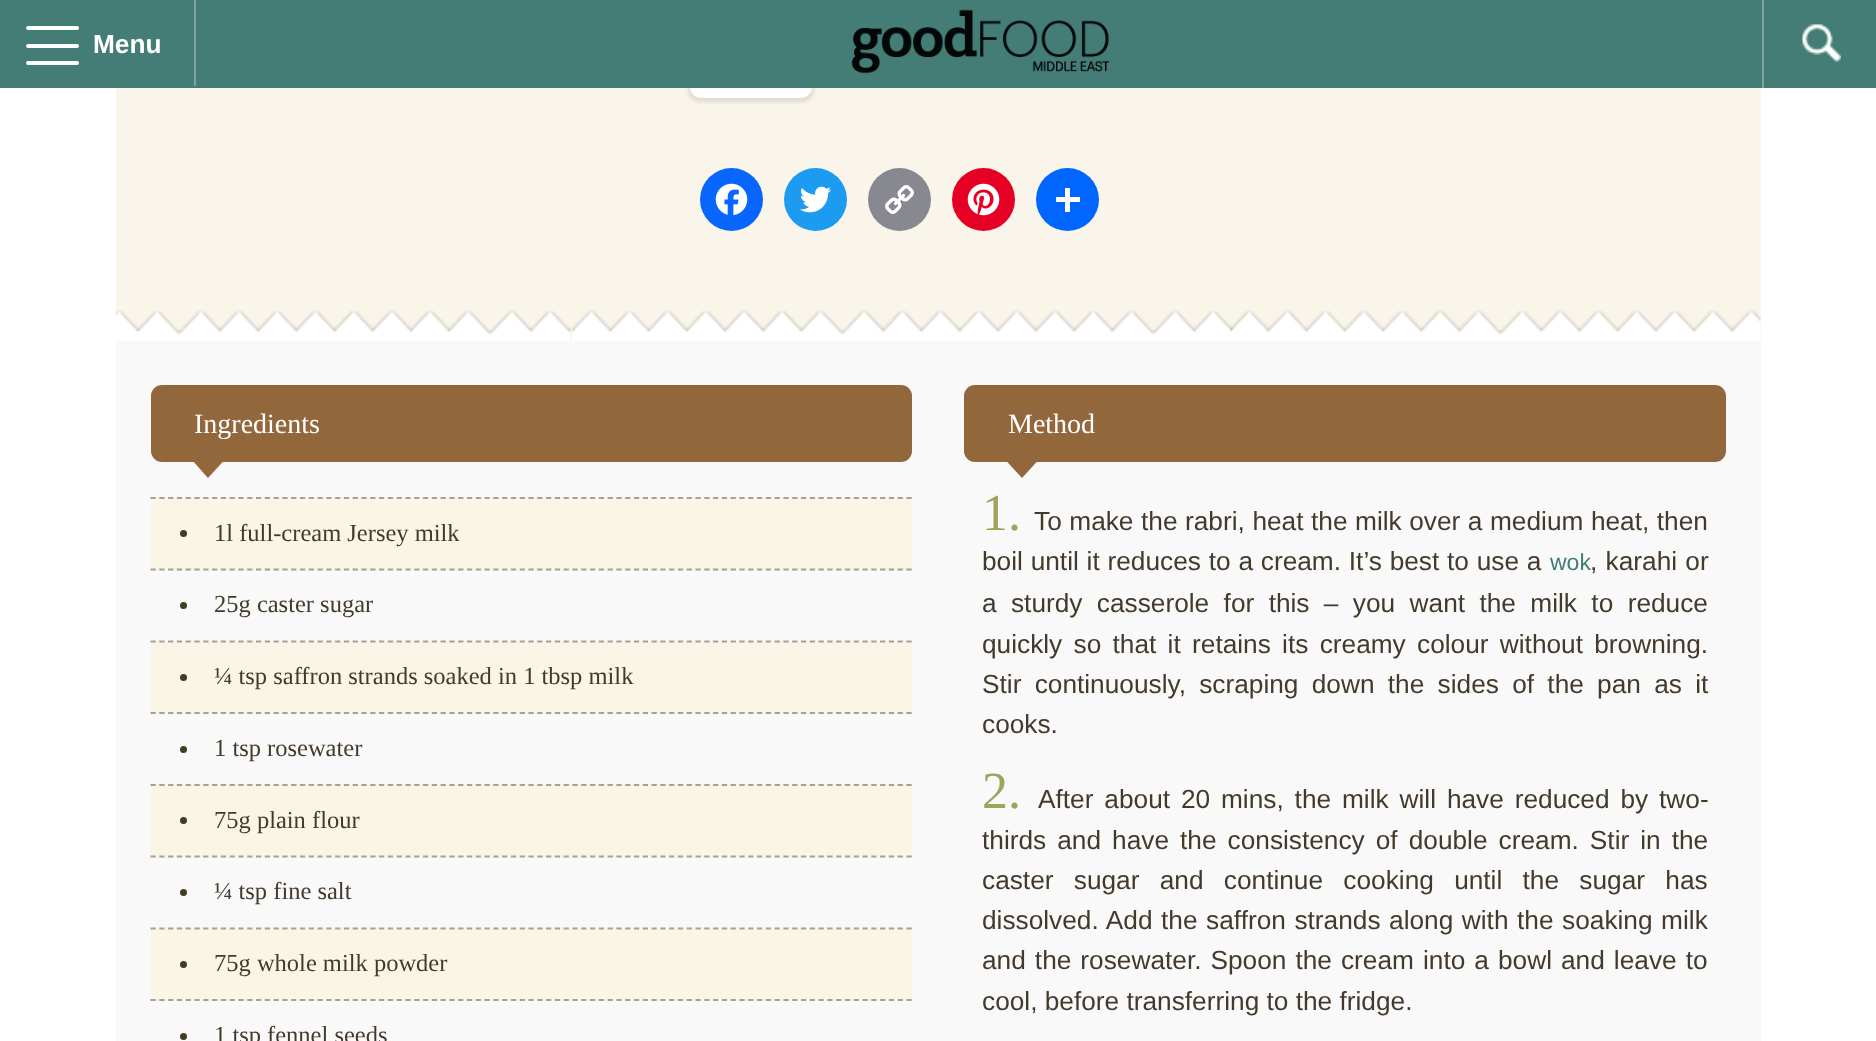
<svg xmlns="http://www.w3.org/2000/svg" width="1876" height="1041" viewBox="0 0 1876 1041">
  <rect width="100%" height="100%" fill="#fff"/>
  <path d="M116 88h1645v253H116z" fill="#faf5ea"/>
  <rect x="688" width="126" height="102" rx="12" fill="#0000001a" filter="blur(2px)"/>
  <path d="M690 49H812V87C812 93 807 98 801 98H701C695 98 690 93 690 87Z" fill="#fff"/>
  <path d="M0 0h1876v88H0z" fill="#447d75"/>
  <rect x="26" y="26" width="53" height="4" rx="2" fill="#fff"/>
  <rect x="26" y="44" width="53" height="4" rx="2" fill="#fff"/>
  <rect x="26" y="61" width="53" height="4" rx="2" fill="#fff"/>
  <path d="M194 0h2v86H194z" fill="#7ca49e"/>
  <image x="851" y="9" width="259" height="65" href="img/1.png"/>
  <path d="M1762 0h2v88H1762z" fill="#7ca49e"/>
  <image x="1802" y="24" width="39" height="38" href="img/2.png"/>
  <image x="115" y="310" width="1646" height="31" href="img/3.png"/>
  <circle cx="731.5" cy="199.5" r="31.5" fill="#0866ff"/>
  <image x="715" y="183" width="33" height="33" href="img/4.png"/>
  <circle cx="815.5" cy="199.5" r="31.5" fill="#1d9bf0"/>
  <image x="800" y="186" width="32" height="27" href="img/5.png"/>
  <circle cx="899.5" cy="199.5" r="31.5" fill="#888990"/>
  <image x="885" y="185" width="29" height="29" href="img/6.png"/>
  <circle cx="983.5" cy="199.5" r="31.5" fill="#e60023"/>
  <image x="967" y="183" width="33" height="33" href="img/7.png"/>
  <circle cx="1067.5" cy="199.5" r="31.5" fill="#0166ff"/>
  <path d="M1065 188h5v24H1065z" fill="#fff"/>
  <path d="M1056 197h24v5H1056z" fill="#fff"/>
  <path d="M116 341h1645v700H116z" fill="#f9f9f9"/>
  <rect x="151" y="385" width="761" height="77" rx="11" fill="#92673c"/>
  <path d="M177 443H240L208 478Z" fill="#92673c"/>
  <path d="M151 497h761v74H151z" fill="#f9f6e5"/>
  <path d="M150.5 498H912" fill="none" stroke="#a7a099" stroke-width="1.8" stroke-dasharray="5.25 3.54"/>
  <path d="M150.5 569.5H912" fill="none" stroke="#a7a099" stroke-width="1.8" stroke-dasharray="5.25 3.54"/>
  <circle cx="183.5" cy="533.5" r="3.5" fill="#443a2c"/>
  <circle cx="183.5" cy="605.5" r="3.5" fill="#443a2c"/>
  <path d="M151 641h761v73H151z" fill="#f9f6e5"/>
  <path d="M150.5 641.5H912" fill="none" stroke="#a7a099" stroke-width="1.8" stroke-dasharray="5.25 3.54"/>
  <path d="M150.5 713H912" fill="none" stroke="#a7a099" stroke-width="1.8" stroke-dasharray="5.25 3.54"/>
  <circle cx="183.5" cy="677.5" r="3.5" fill="#443a2c"/>
  <circle cx="183.5" cy="749.5" r="3.5" fill="#443a2c"/>
  <path d="M151 784h761v74H151z" fill="#f9f6e5"/>
  <path d="M150.5 785H912" fill="none" stroke="#a7a099" stroke-width="1.8" stroke-dasharray="5.25 3.54"/>
  <path d="M150.5 856.5H912" fill="none" stroke="#a7a099" stroke-width="1.8" stroke-dasharray="5.25 3.54"/>
  <circle cx="183.5" cy="820.5" r="3.5" fill="#443a2c"/>
  <circle cx="183.5" cy="892.5" r="3.5" fill="#443a2c"/>
  <path d="M151 928h761v73H151z" fill="#f9f6e5"/>
  <path d="M150.5 928.5H912" fill="none" stroke="#a7a099" stroke-width="1.8" stroke-dasharray="5.25 3.54"/>
  <path d="M150.5 1000H912" fill="none" stroke="#a7a099" stroke-width="1.8" stroke-dasharray="5.25 3.54"/>
  <circle cx="183.5" cy="964.5" r="3.5" fill="#443a2c"/>
  <circle cx="183.5" cy="1036.5" r="3.5" fill="#443a2c"/>
  <rect x="964" y="385" width="762" height="77" rx="11" fill="#92673c"/>
  <path d="M990 443H1054L1022 478Z" fill="#92673c"/>
  <text x="93" y="53" font-family="Liberation Sans" font-size="26.25" font-weight="bold" fill="#fff">Menu</text>
  <text x="194" y="433" font-family="Liberation Serif" font-size="28" fill="#fff">Ingredients</text>
  <g font-family="Liberation Serif" font-size="24.5" fill="#443a2c">
    <text x="214" y="541">1l full-cream Jersey milk</text>
    <text x="214" y="612">25g caster sugar</text>
    <text x="214" y="684">¼ tsp saffron strands soaked in 1 tbsp milk</text>
    <text x="214" y="756">1 tsp rosewater</text>
    <text x="214" y="828">75g plain flour</text>
    <text x="214" y="899">¼ tsp fine salt</text>
    <text x="214" y="971">75g whole milk powder</text>
    <text x="214" y="1043">1 tsp fennel seeds</text>
  </g>
  <text x="1008" y="433" font-family="Liberation Serif" font-size="28" fill="#fff">Method</text>
  <text x="982" y="530" font-family="Liberation Serif" font-size="52" fill="#a0a45b">1.</text>
  <g font-family="Liberation Sans" font-size="26.25" fill="#443a2c">
    <text x="1034" y="530" word-spacing="0.25">To make the rabri, heat the milk over a medium heat, then</text>
    <text x="982" y="570" word-spacing="0.5">boil until it reduces to a cream. It’s best to use a</text>
  </g>
  <text x="1550" y="570" font-family="Liberation Sans" font-size="23" fill="#447d75">wok</text>
  <g font-family="Liberation Sans" font-size="26.25" fill="#443a2c">
    <text x="1590" y="570" word-spacing="1">, karahi or</text>
    <text x="982" y="612" word-spacing="7.1">a sturdy casserole for this – you want the milk to reduce</text>
    <text x="982" y="653" word-spacing="4">quickly so that it retains its creamy colour without browning.</text>
    <text x="982" y="693" word-spacing="6">Stir continuously, scraping down the sides of the pan as it</text>
    <text x="982" y="733">cooks.</text>
  </g>
  <text x="982" y="808" font-family="Liberation Serif" font-size="52" fill="#a0a45b">2.</text>
  <g font-family="Liberation Sans" font-size="26.25" fill="#443a2c">
    <text x="1038" y="808" word-spacing="3.6">After about 20 mins, the milk will have reduced by two-</text>
    <text x="982" y="849" word-spacing="3.75">thirds and have the consistency of double cream. Stir in the</text>
    <text x="982" y="889" word-spacing="13">caster sugar and continue cooking until the sugar has</text>
    <text x="982" y="929" word-spacing="1.25">dissolved. Add the saffron strands along with the soaking milk</text>
    <text x="982" y="969" word-spacing="1.75">and the rosewater. Spoon the cream into a bowl and leave to</text>
    <text x="982" y="1010">cool, before transferring to the fridge.</text>
  </g>
</svg>
